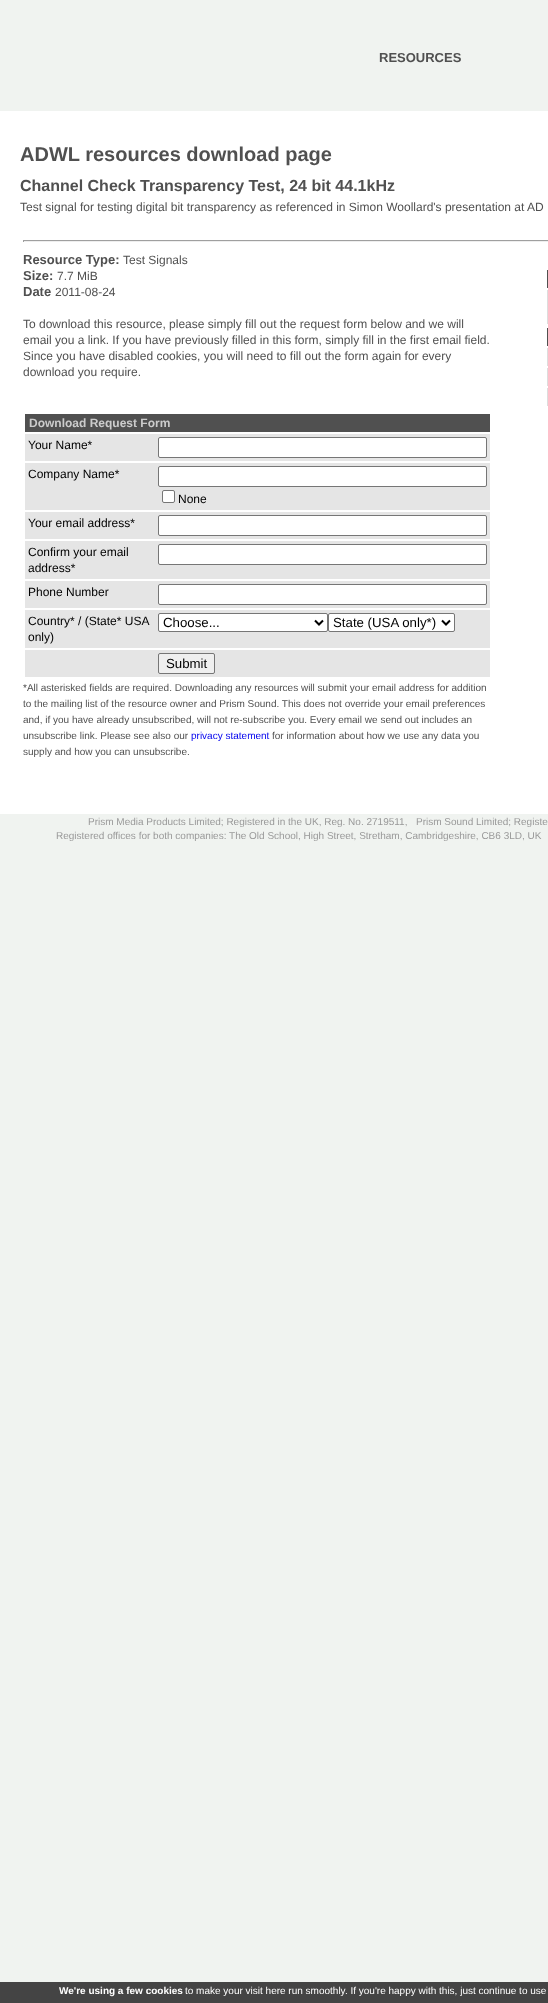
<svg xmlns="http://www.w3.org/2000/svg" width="548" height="2003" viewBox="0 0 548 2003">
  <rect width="100%" height="100%" fill="#f0f3f0"/>
  <path d="M0 111h548v703H0z" fill="#fff"/>
  <path d="M23 240h525v1H23z" fill="#9f9f9f"/>
  <path d="M23 241h525v1H23z" fill="#eee"/>
  <path d="M23 240h1v2H23z" fill="#9f9f9f"/>
  <path d="M25 414h465v18H25z" fill="#505050"/>
  <path d="M25 434h465v27H25z" fill="#e5e5e5"/>
  <rect x="158.5" y="437.5" width="328" height="20" rx="1.5" fill="#fff" stroke="#767676"/>
  <path d="M25 463h465v47H25z" fill="#e5e5e5"/>
  <rect x="158.5" y="466.5" width="328" height="20" rx="1.5" fill="#fff" stroke="#767676"/>
  <rect x="162.5" y="490.5" width="12" height="12" rx="1.5" fill="#fff" stroke="#767676"/>
  <path d="M25 512h465v27H25z" fill="#e5e5e5"/>
  <rect x="158.5" y="515.5" width="328" height="20" rx="1.5" fill="#fff" stroke="#767676"/>
  <path d="M25 541h465v38H25z" fill="#e5e5e5"/>
  <rect x="158.5" y="544.5" width="328" height="20" rx="1.5" fill="#fff" stroke="#767676"/>
  <path d="M25 581h465v27H25z" fill="#e5e5e5"/>
  <rect x="158.5" y="584.5" width="328" height="20" rx="1.5" fill="#fff" stroke="#767676"/>
  <path d="M25 610h465v38H25z" fill="#e5e5e5"/>
  <rect x="158.5" y="613.5" width="169" height="18" rx="1.5" fill="#fff" stroke="#767676"/>
  <path d="M315 620.5L319 624.5L323 620.5" fill="none" stroke="#000" stroke-width="2"/>
  <rect x="328.5" y="613.5" width="126" height="18" rx="1.5" fill="#fff" stroke="#767676"/>
  <path d="M442 620.5L446 624.5L450 620.5" fill="none" stroke="#000" stroke-width="2"/>
  <path d="M25 650h465v27H25z" fill="#e5e5e5"/>
  <rect x="158.5" y="653.5" width="56" height="20" rx="1.5" fill="#efefef" stroke="#767676"/>
  <path d="M547 270h1v18H547z" fill="#505050"/>
  <path d="M547 290h1v34H547z" fill="#ddd"/>
  <path d="M547 328h1v18H547z" fill="#505050"/>
  <path d="M547 348h1v18H547z" fill="#ddd"/>
  <path d="M547 368h1v18H547z" fill="#ddd"/>
  <path d="M547 388h1v18H547z" fill="#ddd"/>
  <path d="M0 1982h548v21H0z" fill="#444"/>
  <text x="379" y="62" font-family="Liberation Sans" font-size="13" font-weight="bold" fill="#505050">RESOURCES</text>
  <text x="20" y="161" font-family="Liberation Sans" font-size="20" font-weight="bold" fill="#505050">ADWL resources download page</text>
  <text x="20" y="191" font-family="Liberation Sans" font-size="16" font-weight="bold" fill="#505050">Channel Check Transparency Test, 24 bit 44.1kHz</text>
  <text x="20" y="211" font-family="Liberation Sans" font-size="12" fill="#505050">Test signal for testing digital bit transparency as referenced in Simon Woollard's presentation at AD</text>
  <text x="23" y="264" font-family="Liberation Sans" font-size="13" font-weight="bold" fill="#505050">Resource Type:</text>
  <text x="123" y="264" font-family="Liberation Sans" font-size="12" fill="#505050">Test Signals</text>
  <text x="23" y="280" font-family="Liberation Sans" font-size="13" font-weight="bold" fill="#505050">Size:</text>
  <text x="57" y="280" font-family="Liberation Sans" font-size="12" fill="#505050">7.7 MiB</text>
  <text x="23" y="296" font-family="Liberation Sans" font-size="13" font-weight="bold" fill="#505050">Date</text>
  <g font-family="Liberation Sans" font-size="12" fill="#505050">
    <text x="55" y="296">2011-08-24</text>
    <text x="23" y="328">To download this resource, please simply fill out the request form below and we will</text>
    <text x="23" y="344">email you a link. If you have previously filled in this form, simply fill in the first email field.</text>
    <text x="23" y="360">Since you have disabled cookies, you will need to fill out the form again for every</text>
    <text x="23" y="376">download you require.</text>
  </g>
  <text x="29" y="427" font-family="Liberation Sans" font-size="12" font-weight="bold" fill="#ccc">Download Request Form</text>
  <g font-family="Liberation Sans" font-size="12" fill="#000">
    <text x="28" y="449">Your Name*</text>
    <text x="28" y="478">Company Name*</text>
    <text x="178" y="503">None</text>
    <text x="28" y="527">Your email address*</text>
    <text x="28" y="556">Confirm your email</text>
    <text x="28" y="572">address*</text>
    <text x="28" y="596">Phone Number</text>
    <text x="28" y="625">Country* / (State* USA</text>
    <text x="28" y="641">only)</text>
  </g>
  <g font-family="Liberation Sans" font-size="13.25" fill="#000">
    <text x="163" y="627">Choose...</text>
    <text x="333" y="627">State (USA only*)</text>
    <text x="166" y="668">Submit</text>
  </g>
  <g font-family="Liberation Sans" font-size="10" fill="#505050">
    <text x="23" y="691">*All asterisked fields are required. Downloading any resources will submit your email address for addition</text>
    <text x="23" y="707">to the mailing list of the resource owner and Prism Sound. This does not override your email preferences</text>
    <text x="23" y="723">and, if you have already unsubscribed, will not re-subscribe you. Every email we send out includes an</text>
    <text x="23" y="739">unsubscribe link. Please see also our</text>
  </g>
  <text x="191" y="739" font-family="Liberation Sans" font-size="10" fill="#00e">privacy statement</text>
  <g font-family="Liberation Sans" font-size="10" fill="#505050">
    <text x="272" y="739">for information about how we use any data you</text>
    <text x="23" y="755">supply and how you can unsubscribe.</text>
  </g>
  <g font-family="Liberation Sans" font-size="10" fill="#999">
    <text x="88" y="825">Prism Media Products Limited; Registered in the UK, Reg. No. 2719511,</text>
    <text x="416" y="825">Prism Sound Limited; Registe</text>
    <text x="56" y="839">Registered offices for both companies: The Old School, High Street, Stretham, Cambridgeshire, CB6 3LD, UK</text>
  </g>
  <text x="59" y="1994" font-family="Liberation Sans" font-size="10" font-weight="bold" fill="#fff">We're using a few cookies</text>
  <text x="185" y="1994" font-family="Liberation Sans" font-size="10" fill="#fff">to make your visit here run smoothly. If you're happy with this, just continue to use</text>
</svg>
